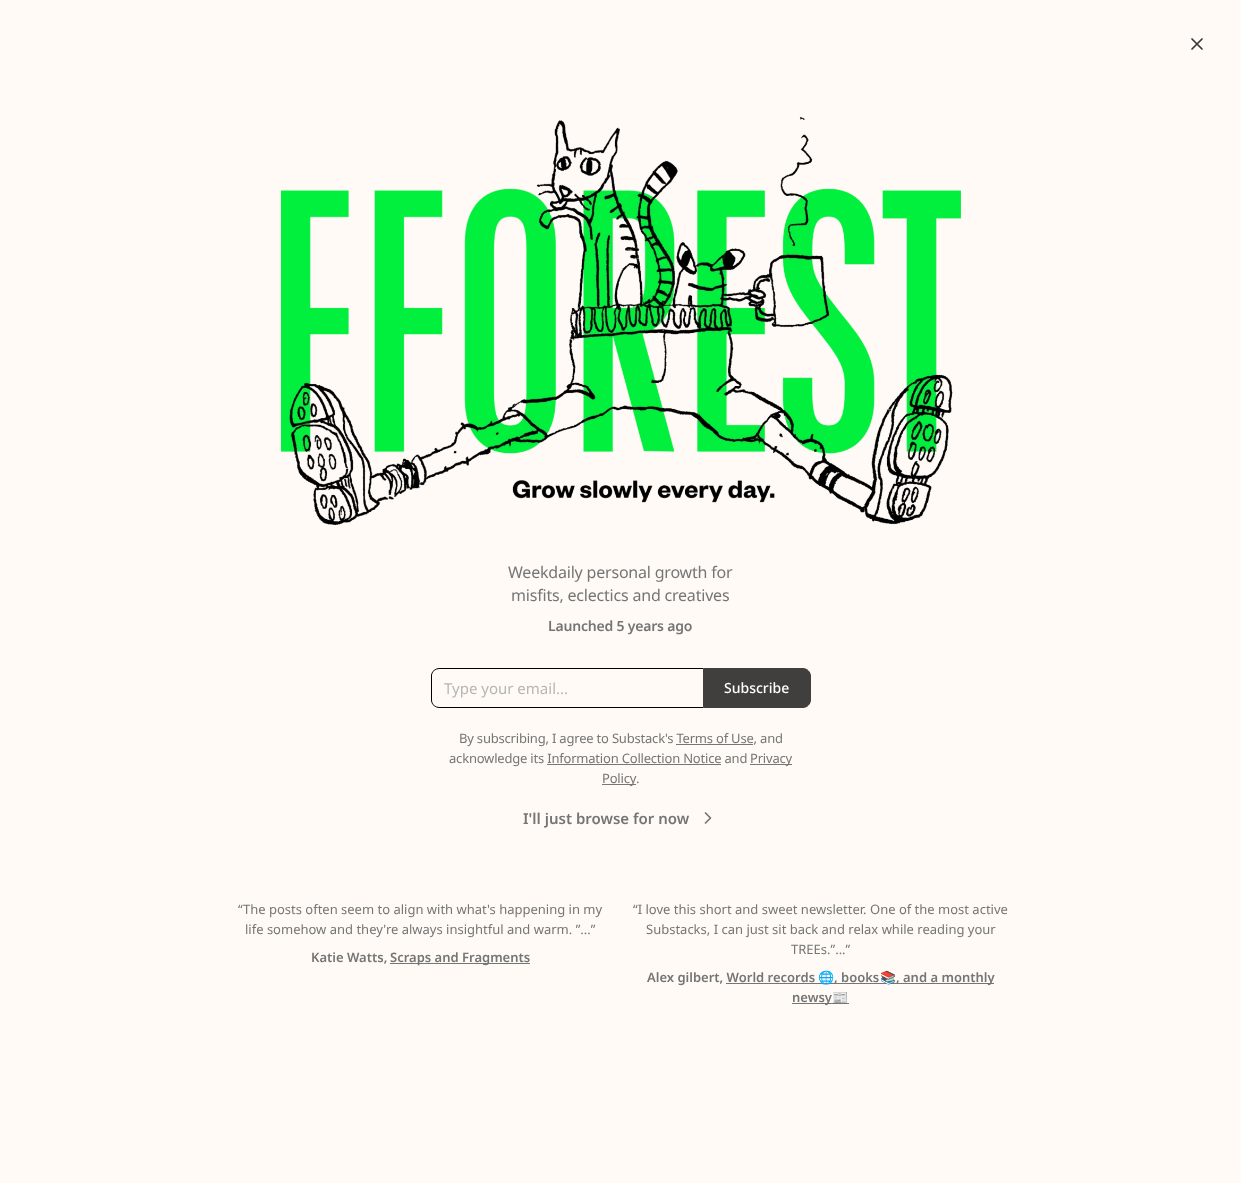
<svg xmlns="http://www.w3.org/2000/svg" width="1241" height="1183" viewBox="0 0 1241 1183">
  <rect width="100%" height="100%" fill="#fffaf5"/>
  <path d="M1202 39L1192 49M1192 39L1202 49" fill="none" stroke="#363737" stroke-width="1.7" stroke-linecap="round" stroke-linejoin="round"/>
  <image x="280" y="116" width="681" height="409" href="img/1.png"/>
  <path d="M439 668H703V708H439C435 708 431 704 431 700V676C431 672 435 668 439 668ZM439 669H703V707H439C435 707 432 704 432 700V676C432 672 435 669 439 669Z" fill="#000" fill-rule="evenodd"/>
  <path d="M703.5 668.5H803C807 668.5 810.5 672 810.5 676V700C810.5 704 807 707.5 803 707.5H703.5Z" fill="#403f3d" stroke="#403f3d"/>
  <path d="M750 764h42v1H750z" fill="#777"/>
  <path d="M602 784h34v1H602z" fill="#777"/>
  <path d="M705.5 823L710.5 818L705.5 813" fill="none" stroke="#757575" stroke-width="1.7" stroke-linecap="round" stroke-linejoin="round"/>
  <path d="M390 963h140v1H390z" fill="#757575"/>
  <path d="M726 983h268v1H726z" fill="#757575"/>
  <path d="M792 1003h57v1H792z" fill="#757575"/>
  <g font-family="Noto Sans" font-size="16" letter-spacing="-0.2" fill="#757575">
    <text x="508" y="578">Weekdaily personal growth for</text>
    <text x="511" y="601">misfits, eclectics and creatives</text>
  </g>
  <text x="548" y="631" font-family="Noto Sans" font-size="14" font-weight="600" letter-spacing="-0.2" fill="#757575">Launched 5 years ago</text>
  <text x="444" y="694" font-family="Noto Sans" font-size="15" fill="#b6b6b6">Type your email...</text>
  <text x="724" y="693" font-family="Noto Sans" font-size="14" font-weight="500" fill="#fffefd">Subscribe</text>
  <text x="459" y="743" font-family="Noto Sans" font-size="13" letter-spacing="-0.2" fill="#757575">By subscribing, I agree to Substack's Terms of Use, and</text>
  <path d="M676 744h77v1H676z" fill="#777"/>
  <g font-family="Noto Sans" font-size="13" letter-spacing="-0.2" fill="#757575">
    <text x="449" y="763">acknowledge its Information Collection Notice and</text>
    <text x="750" y="763">Privacy</text>
  </g>
  <path d="M547 764h174v1H547z" fill="#777"/>
  <g font-family="Noto Sans" font-size="13" letter-spacing="-0.2" fill="#757575">
    <text x="602" y="783">Policy</text>
    <text x="636" y="783">.</text>
  </g>
  <text x="523" y="824" font-family="Noto Sans" font-size="15" font-weight="600" fill="#757575">I'll just browse for now</text>
  <g font-family="Noto Sans" font-size="13" fill="#757575">
    <text x="238" y="914">“The posts often seem to align with what's happening in my</text>
    <text x="245" y="934">life somehow and they're always insightful and warm. ”...”</text>
  </g>
  <g font-family="Noto Sans" font-size="13" font-weight="600" fill="#757575">
    <text x="311" y="962">Katie Watts,</text>
    <text x="390" y="962">Scraps and Fragments</text>
  </g>
  <g font-family="Noto Sans" font-size="13" fill="#757575">
    <text x="633" y="914">“I love this short and sweet newsletter. One of the most active</text>
    <text x="646" y="934">Substacks, I can just sit back and relax while reading your</text>
    <text x="791" y="954">TREEs.”...”</text>
  </g>
  <text x="647" y="982" font-family="Noto Sans" font-size="13" font-weight="600" fill="#757575">Alex gilbert, World records</text>
  <text x="818" y="982" font-family="Noto Color Emoji" font-size="13" font-weight="bold" fill="#757575">🌐</text>
  <text x="834" y="982" font-family="Noto Sans" font-size="13" font-weight="600" fill="#757575">, books</text>
  <text x="880" y="982" font-family="Noto Color Emoji" font-size="13" font-weight="bold" fill="#757575">📚</text>
  <g font-family="Noto Sans" font-size="13" font-weight="600" fill="#757575">
    <text x="896" y="982">, and a monthly</text>
    <text x="792" y="1002">newsy</text>
  </g>
  <text x="832" y="1002" font-family="Noto Color Emoji" font-size="13" font-weight="bold" fill="#757575">📰</text>
</svg>
